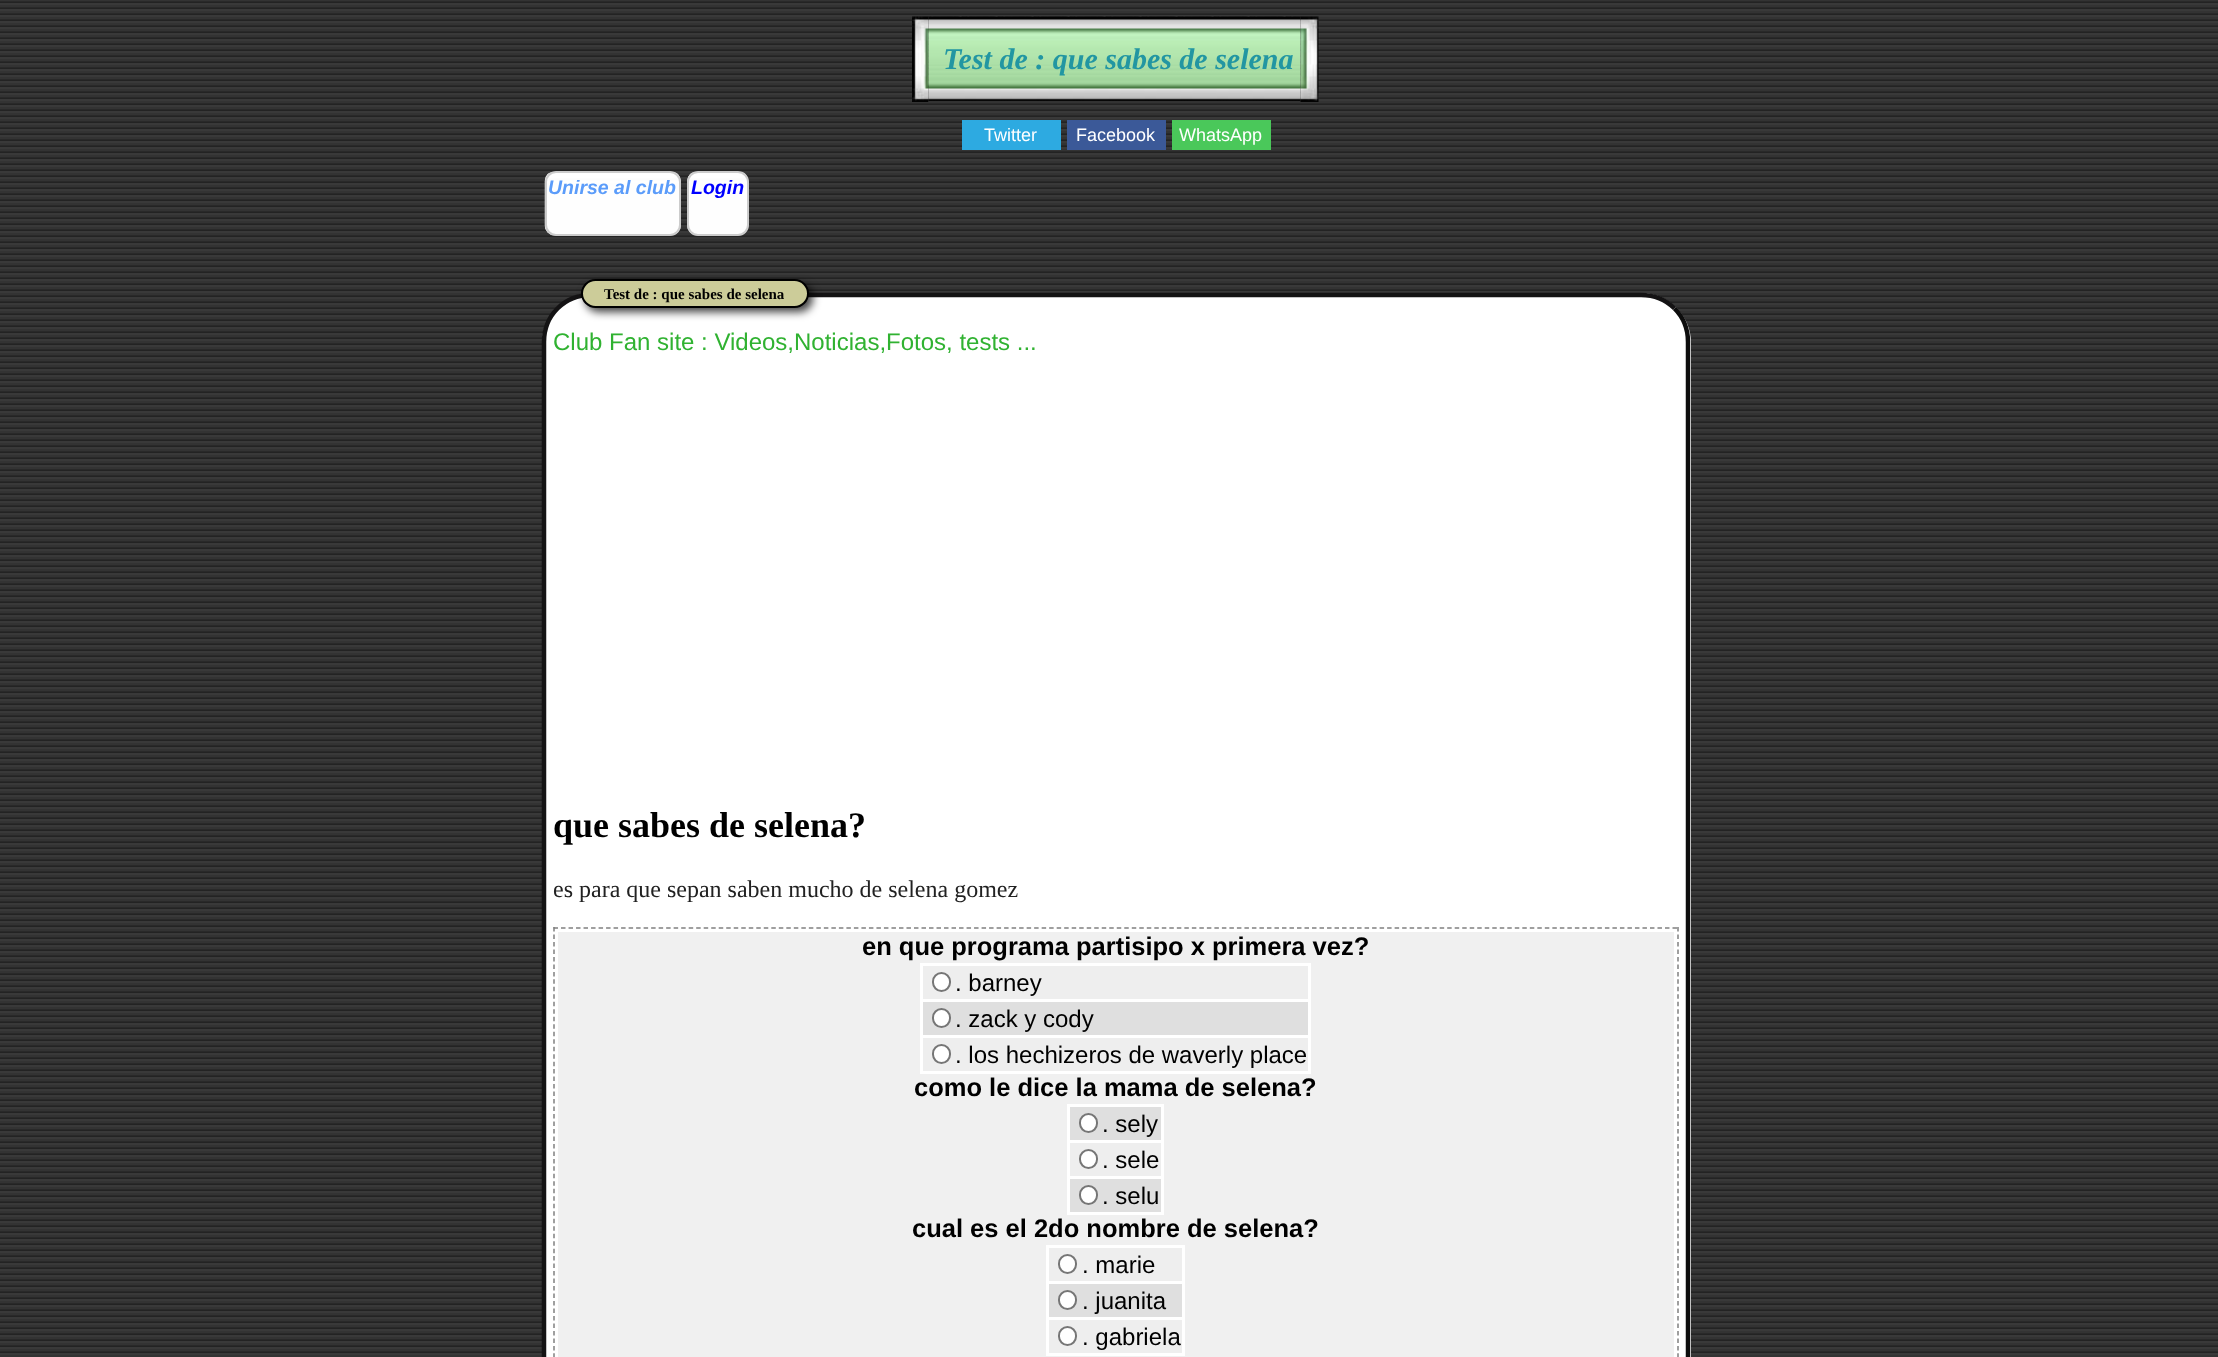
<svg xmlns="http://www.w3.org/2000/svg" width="2218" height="1357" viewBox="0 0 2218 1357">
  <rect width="100%" height="100%" fill="#fff"/>
  <image x="0" y="0" width="2218" height="1357" href="img/1.png"/>
  <image x="912" y="16" width="17" height="86" href="img/2.png"/>
  <image x="928" y="16" width="373" height="86" href="img/3.png"/>
  <image x="1300" y="16" width="19" height="86" href="img/4.png"/>
  <path d="M962 120h99v30H962z" fill="#2daae1"/>
  <path d="M1067 120h99v30H1067z" fill="#3b5998"/>
  <path d="M1172 120h99v30H1172z" fill="#4ac85a"/>
  <image x="544" y="171" width="137" height="65" href="img/5.png"/>
  <rect x="546" y="172" width="134" height="63" rx="10" fill="none" stroke="#ccc" stroke-width="2"/>
  <image x="687" y="171" width="62" height="65" href="img/6.png"/>
  <rect x="688" y="172" width="60" height="63" rx="10" fill="none" stroke="#ccc" stroke-width="2"/>
  <rect x="542" y="293" width="1149" height="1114" rx="50" fill="#fff"/>
  <path d="M1674.5 308.5C1683.5 317.5 1688 329.5 1688 342V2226C1688 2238.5 1683.5 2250.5 1674.5 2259.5C1665.5 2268.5 1653.5 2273 1641 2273H591C578.5 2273 566.5 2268.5 557.5 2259.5" fill="none" stroke="#0d0d0d" stroke-width="4.5"/>
  <path d="M557.5 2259.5C548.5 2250.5 544 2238.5 544 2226V342C544 329.5 548.5 317.5 557.5 308.5C566.5 299.5 578.5 295 591 295H1641C1653.5 295 1665.5 299.5 1674.5 308.5" fill="none" stroke="#141314" stroke-width="4.5"/>
  <rect x="585" y="284" width="228" height="28" rx="14" fill="#000000bf" filter="blur(4px)"/>
  <rect x="582" y="280" width="226" height="27" rx="13.5" fill="#cc9" stroke="#000" stroke-width="2"/>
  <path d="M553.5 928H1678.5" fill="none" stroke="#808080" stroke-width="1.5" stroke-dasharray="4.5 3.01"/>
  <path d="M1678 927V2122.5" fill="none" stroke="#808080" stroke-width="1.5" stroke-dasharray="4.5 2.98"/>
  <path d="M554 927V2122.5" fill="none" stroke="#808080" stroke-width="1.5" stroke-dasharray="4.5 2.98"/>
  <path d="M558 932h1116v425H558z" fill="#f0f0f0"/>
  <path d="M920 963h391v111H920z" fill="#fff"/>
  <path d="M923 966h385v33H923z" fill="#eee"/>
  <rect x="933" y="973" width="17" height="18" rx="8.5" fill="#fff" stroke="#767676" stroke-width="2"/>
  <path d="M923 1002h385v33H923z" fill="#dfdfdf"/>
  <rect x="933" y="1009" width="17" height="18" rx="8.5" fill="#fff" stroke="#767676" stroke-width="2"/>
  <path d="M923 1038h385v33H923z" fill="#eee"/>
  <rect x="933" y="1045" width="17" height="18" rx="8.5" fill="#fff" stroke="#767676" stroke-width="2"/>
  <path d="M1067 1104h97v111H1067z" fill="#fff"/>
  <path d="M1070 1107h91v33H1070z" fill="#dfdfdf"/>
  <rect x="1080" y="1114" width="17" height="18" rx="8.5" fill="#fff" stroke="#767676" stroke-width="2"/>
  <path d="M1070 1143h91v33H1070z" fill="#eee"/>
  <rect x="1080" y="1150" width="17" height="18" rx="8.5" fill="#fff" stroke="#767676" stroke-width="2"/>
  <path d="M1070 1179h91v33H1070z" fill="#dfdfdf"/>
  <rect x="1080" y="1186" width="17" height="18" rx="8.5" fill="#fff" stroke="#767676" stroke-width="2"/>
  <path d="M1046 1245h139v111H1046z" fill="#fff"/>
  <path d="M1049 1248h133v33H1049z" fill="#eee"/>
  <rect x="1059" y="1255" width="17" height="18" rx="8.5" fill="#fff" stroke="#767676" stroke-width="2"/>
  <path d="M1049 1284h133v33H1049z" fill="#dfdfdf"/>
  <rect x="1059" y="1291" width="17" height="18" rx="8.5" fill="#fff" stroke="#767676" stroke-width="2"/>
  <path d="M1049 1320h133v33H1049z" fill="#eee"/>
  <rect x="1059" y="1327" width="17" height="18" rx="8.5" fill="#fff" stroke="#767676" stroke-width="2"/>
  <text x="943" y="69" font-family="Liberation Serif" font-size="30" font-weight="bold" font-style="italic" fill="#2296a2">Test de : que sabes de selena</text>
  <g font-family="Liberation Sans" font-size="18" fill="#fff">
    <text x="984" y="141">Twitter</text>
    <text x="1076" y="141">Facebook</text>
    <text x="1179" y="141">WhatsApp</text>
  </g>
  <text x="548" y="194" font-family="Liberation Sans" font-size="19.5" font-weight="bold" font-style="italic" fill="#5b9cfa">Unirse al club</text>
  <text x="691" y="194" font-family="Liberation Sans" font-size="19.5" font-weight="bold" font-style="italic" fill="#00f">Login</text>
  <text x="604" y="299" font-family="Liberation Serif" font-size="15" font-weight="bold" fill="#000">Test de : que sabes de selena</text>
  <text x="553" y="350" font-family="Liberation Sans" font-size="24" fill="#30b231">Club Fan site : Videos,Noticias,Fotos, tests ...</text>
  <text x="553" y="837" font-family="Liberation Serif" font-size="36" font-weight="bold" fill="#000">que sabes de selena?</text>
  <text x="553" y="897" font-family="Liberation Serif" font-size="24" fill="#222">es para que sepan saben mucho de selena gomez</text>
  <text x="862" y="955" font-family="Liberation Sans" font-size="25.5" font-weight="bold" fill="#000">en que programa partisipo x primera vez?</text>
  <g font-family="Liberation Sans" font-size="24" fill="#000">
    <text x="955" y="991">. barney</text>
    <text x="955" y="1027">. zack y cody</text>
    <text x="955" y="1063">. los hechizeros de waverly place</text>
  </g>
  <text x="914" y="1096" font-family="Liberation Sans" font-size="25.5" font-weight="bold" fill="#000">como le dice la mama de selena?</text>
  <g font-family="Liberation Sans" font-size="24" fill="#000">
    <text x="1102" y="1132">. sely</text>
    <text x="1102" y="1168">. sele</text>
    <text x="1102" y="1204">. selu</text>
  </g>
  <text x="912" y="1237" font-family="Liberation Sans" font-size="25.5" font-weight="bold" fill="#000">cual es el 2do nombre de selena?</text>
  <g font-family="Liberation Sans" font-size="24" fill="#000">
    <text x="1082" y="1273">. marie</text>
    <text x="1082" y="1309">. juanita</text>
    <text x="1082" y="1345">. gabriela</text>
  </g>
</svg>
